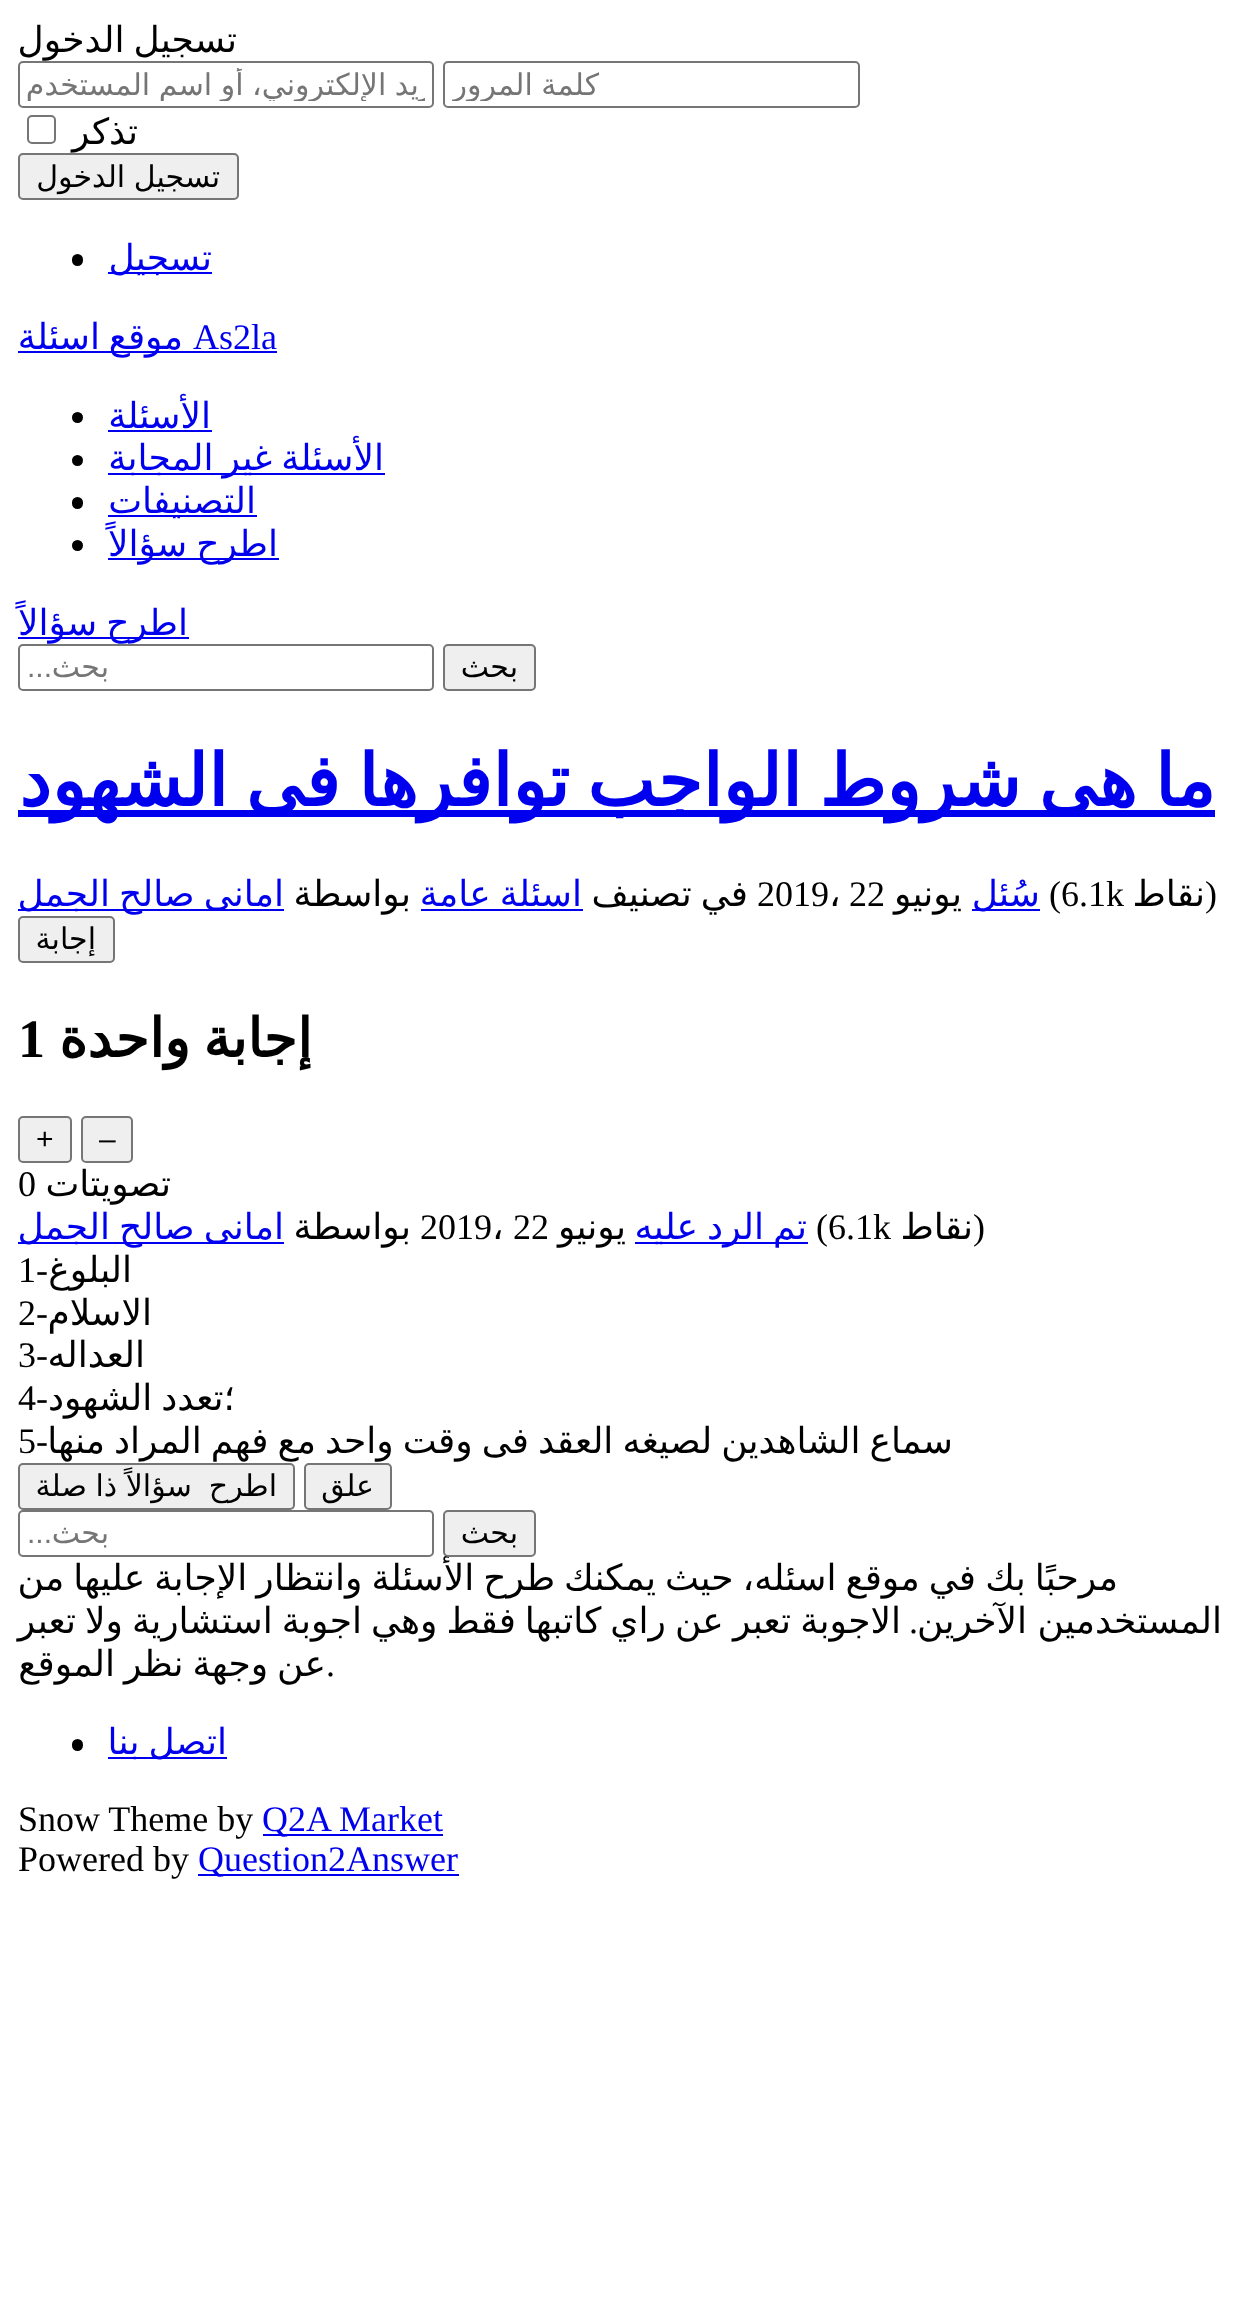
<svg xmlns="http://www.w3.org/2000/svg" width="1259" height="2323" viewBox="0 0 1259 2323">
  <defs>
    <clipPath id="clip1"><path d="M452 68h399v33H452z"/></clipPath>
    <clipPath id="clip2"><path d="M27 68h398v33H27z"/></clipPath>
  </defs>
  <rect width="100%" height="100%" fill="#fff"/>
  <rect x="444" y="62" width="415" height="45" rx="4" fill="none" stroke="#767676" stroke-width="2"/>
  <rect x="19" y="62" width="414" height="45" rx="4" fill="none" stroke="#767676" stroke-width="2"/>
  <rect x="28" y="116" width="27" height="27" rx="4" fill="none" stroke="#767676" stroke-width="2"/>
  <rect x="19" y="154" width="219" height="45" rx="4" fill="#efefef" stroke="#767676" stroke-width="2"/>
  <path d="M108 272h104v2H108z" fill="#00e"/>
  <rect x="72" y="254" width="11" height="12" rx="5.5" fill="#000"/>
  <path d="M18 351h259v2H18z" fill="#00e"/>
  <path d="M108 430h104v2H108z" fill="#00e"/>
  <circle cx="77.5" cy="417.5" r="5.5" fill="#000"/>
  <path d="M108 473h277v2H108z" fill="#00e"/>
  <circle cx="77.5" cy="460.5" r="5.5" fill="#000"/>
  <path d="M108 515h149v2H108z" fill="#00e"/>
  <rect x="72" y="497" width="11" height="12" rx="5.5" fill="#000"/>
  <path d="M108 558h171v2H108z" fill="#00e"/>
  <circle cx="77.5" cy="545.5" r="5.5" fill="#000"/>
  <path d="M18 637h171v2H18z" fill="#00e"/>
  <rect x="444" y="645" width="91" height="45" rx="4" fill="#efefef" stroke="#767676" stroke-width="2"/>
  <rect x="19" y="645" width="414" height="45" rx="4" fill="none" stroke="#767676" stroke-width="2"/>
  <path d="M18 810h1197v7H18z" fill="#00e"/>
  <path d="M972 909h68v2H972z" fill="#00e"/>
  <path d="M421 909h162v2H421z" fill="#00e"/>
  <path d="M18 909h266v2H18z" fill="#00e"/>
  <rect x="19" y="917" width="95" height="45" rx="4" fill="#efefef" stroke="#767676" stroke-width="2"/>
  <rect x="82" y="1117" width="50" height="45" rx="4" fill="#efefef" stroke="#767676" stroke-width="2"/>
  <rect x="19" y="1117" width="52" height="45" rx="4" fill="#efefef" stroke="#767676" stroke-width="2"/>
  <path d="M635 1242h173v2H635z" fill="#00e"/>
  <path d="M18 1242h266v2H18z" fill="#00e"/>
  <rect x="305" y="1464" width="86" height="45" rx="4" fill="#efefef" stroke="#767676" stroke-width="2"/>
  <rect x="19" y="1464" width="275" height="45" rx="4" fill="#efefef" stroke="#767676" stroke-width="2"/>
  <rect x="19" y="1511" width="414" height="45" rx="4" fill="none" stroke="#767676" stroke-width="2"/>
  <path d="M108 1757h119v2H108z" fill="#00e"/>
  <rect x="72" y="1739" width="11" height="12" rx="5.5" fill="#000"/>
  <path d="M263 1834h180v2H263z" fill="#00e"/>
  <path d="M198 1874h261v2H198z" fill="#00e"/>
  <text x="237" y="52" word-spacing="-2.4" font-family="DejaVu Sans" font-size="36" direction="rtl" fill="#000">تسجيل الدخول</text>
  <g clip-path="url(#clip1)">
    <text x="599" y="95" word-spacing="-1" font-family="DejaVu Sans" font-size="30" direction="rtl" fill="#757575">كلمة المرور</text>
  </g>
  <g clip-path="url(#clip2)">
    <text x="462" y="95" word-spacing="-1" font-family="DejaVu Sans" font-size="30" direction="rtl" fill="#757575">البريد الإلكتروني، أو اسم المستخدم</text>
  </g>
  <text x="138" y="144" font-family="DejaVu Sans" font-size="36" direction="rtl" fill="#000">تذكر</text>
  <text x="220" y="187" word-spacing="-1" font-family="DejaVu Sans" font-size="30" direction="rtl" fill="#000">تسجيل الدخول</text>
  <text x="212" y="270" font-family="DejaVu Sans" font-size="36" direction="rtl" fill="#00e">تسجيل</text>
  <text x="193" y="349" font-family="Liberation Serif" font-size="36" fill="#00e">As2la</text>
  <g font-family="DejaVu Sans" font-size="36" direction="rtl" fill="#00e">
    <text x="183" y="349">موقع</text>
    <text x="100" y="349">اسئلة</text>
    <text x="211" y="428">الأسئلة</text>
    <text x="384" y="470" word-spacing="-2.4">الأسئلة غير المجابة</text>
    <text x="256" y="513">التصنيفات</text>
    <text x="278" y="556" word-spacing="-2.4">اطرح سؤالاً</text>
    <text x="188" y="635" word-spacing="-2.4">اطرح سؤالاً</text>
  </g>
  <text x="518" y="677" font-family="DejaVu Sans" font-size="30" direction="rtl" fill="#000">بحث</text>
  <text x="109" y="677" font-family="DejaVu Sans" font-size="30" direction="rtl" fill="#757575">بحث</text>
  <text x="52" y="677" font-family="Liberation Sans" font-size="30" direction="rtl" fill="#757575">...</text>
  <text x="1215" y="806" word-spacing="-5" font-family="DejaVu Sans" font-size="72" font-weight="bold" direction="rtl" fill="#00e">ما هى شروط الواجب توافرها فى الشهود</text>
  <text x="1205" y="906" font-family="Liberation Serif" font-size="36" fill="#000">)</text>
  <text x="1205" y="906" font-family="DejaVu Sans" font-size="36" direction="rtl" fill="#000">نقاط</text>
  <text x="1049" y="906" font-family="Liberation Serif" font-size="36" fill="#000">(6.1k</text>
  <text x="1040" y="906" font-family="DejaVu Sans" font-size="36" direction="rtl" fill="#00e">سُئل</text>
  <text x="962" y="906" font-family="DejaVu Sans" font-size="36" direction="rtl" fill="#000">يونيو</text>
  <text x="849" y="906" font-family="Liberation Serif" font-size="36" fill="#000">22</text>
  <text x="829" y="906" font-family="DejaVu Sans" font-size="36" fill="#000">،</text>
  <text x="757" y="906" font-family="Liberation Serif" font-size="36" fill="#000">2019</text>
  <text x="748" y="906" word-spacing="-2.4" font-family="DejaVu Sans" font-size="36" direction="rtl" fill="#000">في تصنيف</text>
  <text x="582" y="906" word-spacing="-2.4" font-family="DejaVu Sans" font-size="36" direction="rtl" fill="#00e">اسئلة عامة</text>
  <text x="411" y="906" font-family="DejaVu Sans" font-size="36" direction="rtl" fill="#000">بواسطة</text>
  <text x="284" y="906" word-spacing="-2.4" font-family="DejaVu Sans" font-size="36" direction="rtl" fill="#00e">امانى صالح الجمل</text>
  <text x="96" y="949" font-family="DejaVu Sans" font-size="30" direction="rtl" fill="#000">إجابة</text>
  <text x="312" y="1057" word-spacing="-4" font-family="DejaVu Sans" font-size="54" font-weight="bold" direction="rtl" fill="#000">إجابة واحدة</text>
  <text x="18" y="1057" font-family="Liberation Serif" font-size="54" font-weight="bold" fill="#000">1</text>
  <g font-family="Liberation Sans" font-size="30" fill="#000">
    <text x="99" y="1149">–</text>
    <text x="36" y="1149">+</text>
  </g>
  <text x="171" y="1196" font-family="DejaVu Sans" font-size="36" direction="rtl" fill="#000">تصويتات</text>
  <g font-family="Liberation Serif" font-size="36" fill="#000">
    <text x="18" y="1196">0</text>
    <text x="973" y="1239">)</text>
  </g>
  <text x="973" y="1239" font-family="DejaVu Sans" font-size="36" direction="rtl" fill="#000">نقاط</text>
  <text x="816" y="1239" font-family="Liberation Serif" font-size="36" fill="#000">(6.1k</text>
  <text x="807" y="1239" word-spacing="-2.4" font-family="DejaVu Sans" font-size="36" direction="rtl" fill="#00e">تم الرد عليه</text>
  <text x="626" y="1239" font-family="DejaVu Sans" font-size="36" direction="rtl" fill="#000">يونيو</text>
  <text x="513" y="1239" font-family="Liberation Serif" font-size="36" fill="#000">22</text>
  <text x="492" y="1239" font-family="DejaVu Sans" font-size="36" fill="#000">،</text>
  <text x="420" y="1239" font-family="Liberation Serif" font-size="36" fill="#000">2019</text>
  <text x="411" y="1239" font-family="DejaVu Sans" font-size="36" direction="rtl" fill="#000">بواسطة</text>
  <text x="284" y="1239" word-spacing="-2.4" font-family="DejaVu Sans" font-size="36" direction="rtl" fill="#00e">امانى صالح الجمل</text>
  <text x="132" y="1282" font-family="DejaVu Sans" font-size="36" direction="rtl" fill="#000">البلوغ</text>
  <text x="18" y="1282" font-family="Liberation Serif" font-size="36" fill="#000">1-</text>
  <text x="152" y="1325" font-family="DejaVu Sans" font-size="36" direction="rtl" fill="#000">الاسلام</text>
  <text x="18" y="1325" font-family="Liberation Serif" font-size="36" fill="#000">2-</text>
  <text x="145" y="1367" font-family="DejaVu Sans" font-size="36" direction="rtl" fill="#000">العداله</text>
  <text x="18" y="1367" font-family="Liberation Serif" font-size="36" fill="#000">3-</text>
  <text x="235" y="1410" word-spacing="-2.4" font-family="DejaVu Sans" font-size="36" direction="rtl" fill="#000">؛تعدد الشهود</text>
  <text x="18" y="1410" font-family="Liberation Serif" font-size="36" fill="#000">4-</text>
  <text x="953" y="1453" word-spacing="-2.4" font-family="DejaVu Sans" font-size="36" direction="rtl" fill="#000">سماع الشاهدين لصيغه العقد فى وقت واحد مع فهم المراد منها</text>
  <text x="18" y="1453" font-family="Liberation Serif" font-size="36" fill="#000">5-</text>
  <g font-family="DejaVu Sans" font-size="30" direction="rtl" fill="#000">
    <text x="374" y="1496">علق</text>
    <text x="277" y="1496" word-spacing="-1" xml:space="preserve">اطرح  سؤالاً ذا صلة</text>
  </g>
  <text x="109" y="1543" font-family="DejaVu Sans" font-size="30" direction="rtl" fill="#757575">بحث</text>
  <text x="52" y="1543" font-family="Liberation Sans" font-size="30" direction="rtl" fill="#757575">...</text>
  <g font-family="DejaVu Sans" font-size="36" direction="rtl" fill="#000">
    <text x="1118" y="1590" word-spacing="-2.4">مرحبًا بك</text>
    <text x="976" y="1590" word-spacing="-2.4">في موقع اسئله، حيث يمكنك طرح الأسئلة وانتظار الإجابة عليها من</text>
  </g>
  <rect x="444" y="1511" width="91" height="45" rx="4" fill="#efefef" stroke="#767676" stroke-width="2"/>
  <text x="518" y="1543" font-family="DejaVu Sans" font-size="30" direction="rtl" fill="#000">بحث</text>
  <text x="1222" y="1633" word-spacing="-1" font-family="DejaVu Sans" font-size="36" direction="rtl" fill="#000">المستخدمين الآخرين</text>
  <text x="918" y="1633" font-family="Liberation Serif" font-size="36" direction="rtl" fill="#000">.</text>
  <g font-family="DejaVu Sans" font-size="36" direction="rtl" fill="#000">
    <text x="901" y="1633">الاجوبة</text>
    <text x="791" y="1633" word-spacing="-2.4">تعبر عن راي كاتبها</text>
    <text x="516" y="1633" word-spacing="-2.4">فقط وهي اجوبة استشارية ولا تعبر</text>
    <text x="326" y="1676" word-spacing="-2.4">عن وجهة نظر الموقع</text>
  </g>
  <text x="326" y="1676" font-family="Liberation Serif" font-size="36" fill="#000">.</text>
  <text x="227" y="1754" word-spacing="-2.4" font-family="DejaVu Sans" font-size="36" direction="rtl" fill="#00e">اتصل بنا</text>
  <text x="262" y="1831" font-family="Liberation Serif" font-size="36" fill="#00e">Q2A Market</text>
  <text x="18" y="1831" font-family="Liberation Serif" font-size="36" fill="#000">Snow Theme by</text>
  <text x="198" y="1871" font-family="Liberation Serif" font-size="36" fill="#00e">Question2Answer</text>
  <text x="18" y="1871" font-family="Liberation Serif" font-size="36" fill="#000">Powered by</text>
</svg>
